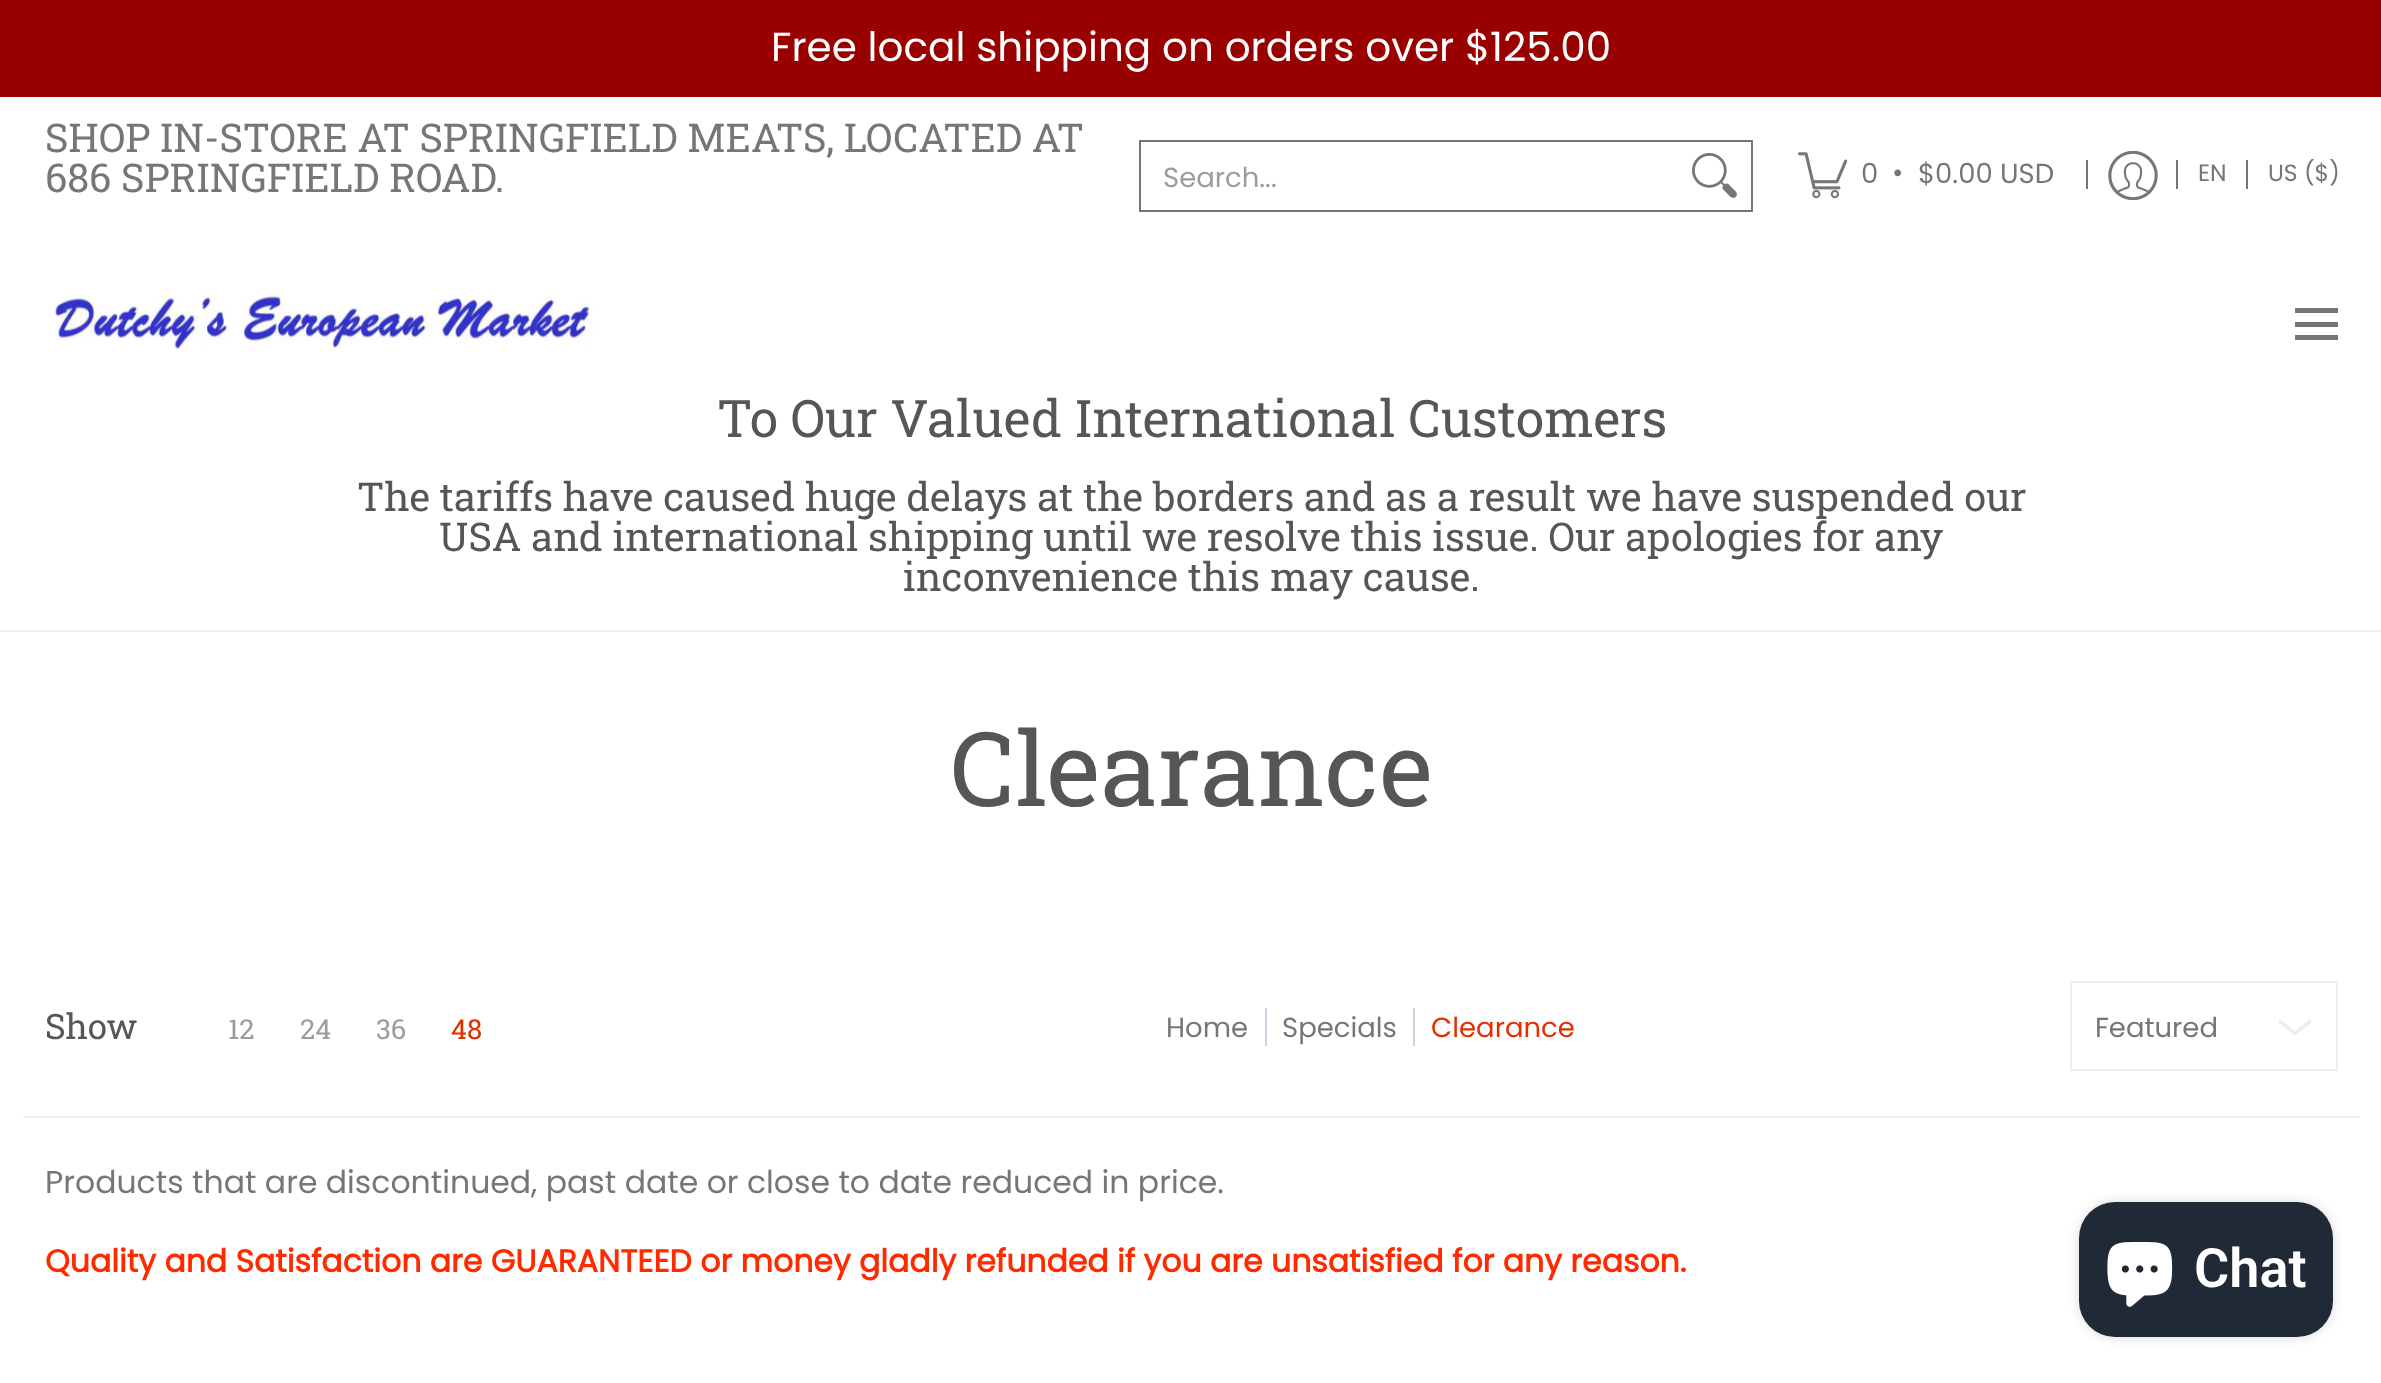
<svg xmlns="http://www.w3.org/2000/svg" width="2381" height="1383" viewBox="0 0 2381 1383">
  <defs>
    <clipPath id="clip1"><path d="M2279 1010h32v32H2279z"/></clipPath>
  </defs>
  <rect width="100%" height="100%" fill="#fff"/>
  <path d="M0 0h2381v97H0z" fill="#900"/>
  <path d="M1140 141h612v70H1140z" fill="none" stroke="#767676" stroke-width="2"/>
  <image x="1692" y="153" width="45" height="45" href="img/1.png"/>
  <image x="1798" y="152" width="49" height="47" href="img/2.png"/>
  <path d="M2086 160h2v29H2086z" fill="#767676"/>
  <image x="2108" y="151" width="50" height="49" href="img/3.png"/>
  <path d="M2176 160h2v29H2176z" fill="#767676"/>
  <path d="M2246 160h2v29H2246z" fill="#767676"/>
  <image x="54" y="294" width="540" height="56" href="img/4.png"/>
  <path d="M2295 308h43v5H2295z" fill="#767676"/>
  <path d="M2295 335h43v5H2295z" fill="#767676"/>
  <path d="M2295 322h43v5H2295z" fill="#767676"/>
  <path d="M0 630h2381v2H0z" fill="#edeef4"/>
  <path d="M23 1116h2337v2H23z" fill="#edeef4"/>
  <path d="M1265 1008h2v38H1265z" fill="#cdd0e1"/>
  <path d="M1413 1008h2v38H1413z" fill="#cdd0e1"/>
  <path d="M2071 982h266v88H2071z" fill="none" stroke="#edeef4" stroke-width="2"/>
  <g clip-path="url(#clip1)">
    <path d="M2280 1021.5L2294.5 1033C2295 1033 2295.5 1033 2295.5 1033L2310 1021.5" fill="none" stroke="#edeef4" stroke-width="3.9" stroke-linecap="round" stroke-linejoin="round"/>
  </g>
  <rect x="2079" y="1202" width="254" height="135" rx="36" fill="#00000026" filter="blur(5.5px)"/>
  <rect x="2079" y="1202" width="254" height="135" rx="36" fill="#202a36"/>
  <image x="2107" y="1242" width="66" height="65" href="img/5.png"/>
  <text x="771" y="61" font-family="Poppins" font-size="40.5" fill="#fff">Free local shipping on orders over $125.00</text>
  <g font-family="Roboto Slab" font-size="39.7" fill="#767676">
    <text x="45" y="152" word-spacing="-0.25">SHOP IN-STORE AT SPRINGFIELD MEATS, LOCATED AT</text>
    <text x="45" y="192">686 SPRINGFIELD ROAD.</text>
  </g>
  <text x="1163" y="187" font-family="Poppins" font-size="27.5" fill="#9c9c9c">Search...</text>
  <g font-family="Poppins" font-size="27.5" fill="#767676">
    <text x="1861" y="183">0</text>
    <text x="1892" y="182">•</text>
    <text x="1918" y="183">$0.00 USD</text>
  </g>
  <g font-family="Poppins" font-size="23.5" fill="#767676">
    <text x="2198" y="181">EN</text>
    <text x="2268" y="181">US ($)</text>
  </g>
  <text x="717" y="437" font-family="Roboto Slab" font-size="51.6" fill="#565656">To Our Valued International Customers</text>
  <g font-family="Roboto Slab" font-size="39.7" fill="#565656">
    <text x="357" y="511">The tariffs have caused huge delays at the borders and as a result we have suspended our</text>
    <text x="439" y="551" word-spacing="-0.1">USA and international shipping until we resolve this issue. Our apologies for any</text>
    <text x="903" y="591">inconvenience this may cause.</text>
  </g>
  <text x="950" y="806" font-family="Roboto Slab" font-size="103" fill="#565656">Clearance</text>
  <text x="45" y="1039" font-family="Roboto Slab" font-size="35" fill="#565656">Show</text>
  <g font-family="Roboto Slab" font-size="27.5" fill="#9c9c9c">
    <text x="228" y="1039">12</text>
    <text x="300" y="1039">24</text>
    <text x="376" y="1039">36</text>
  </g>
  <text x="451" y="1039" font-family="Roboto Slab" font-size="27.5" fill="#e32e00">48</text>
  <g font-family="Poppins" font-size="27.5" fill="#767676">
    <text x="1166" y="1037">Home</text>
    <text x="1282" y="1037">Specials</text>
  </g>
  <text x="1431" y="1037" font-family="Poppins" font-size="27.5" fill="#e32e00">Clearance</text>
  <text x="2095" y="1037" font-family="Poppins" font-size="27.5" fill="#767676">Featured</text>
  <text x="45" y="1193" font-family="Poppins" font-size="31.5" fill="#767676">Products that are discontinued, past date or close to date reduced in price.</text>
  <text x="45" y="1272" font-family="Poppins" font-size="31.5" font-weight="bold" fill="#ff2a00">Quality and Satisfaction are GUARANTEED or money gladly refunded if you are unsatisfied for any reason.</text>
  <text x="2194" y="1287" font-family="Roboto" font-size="54" font-weight="600" fill="#fff">Chat</text>
</svg>
